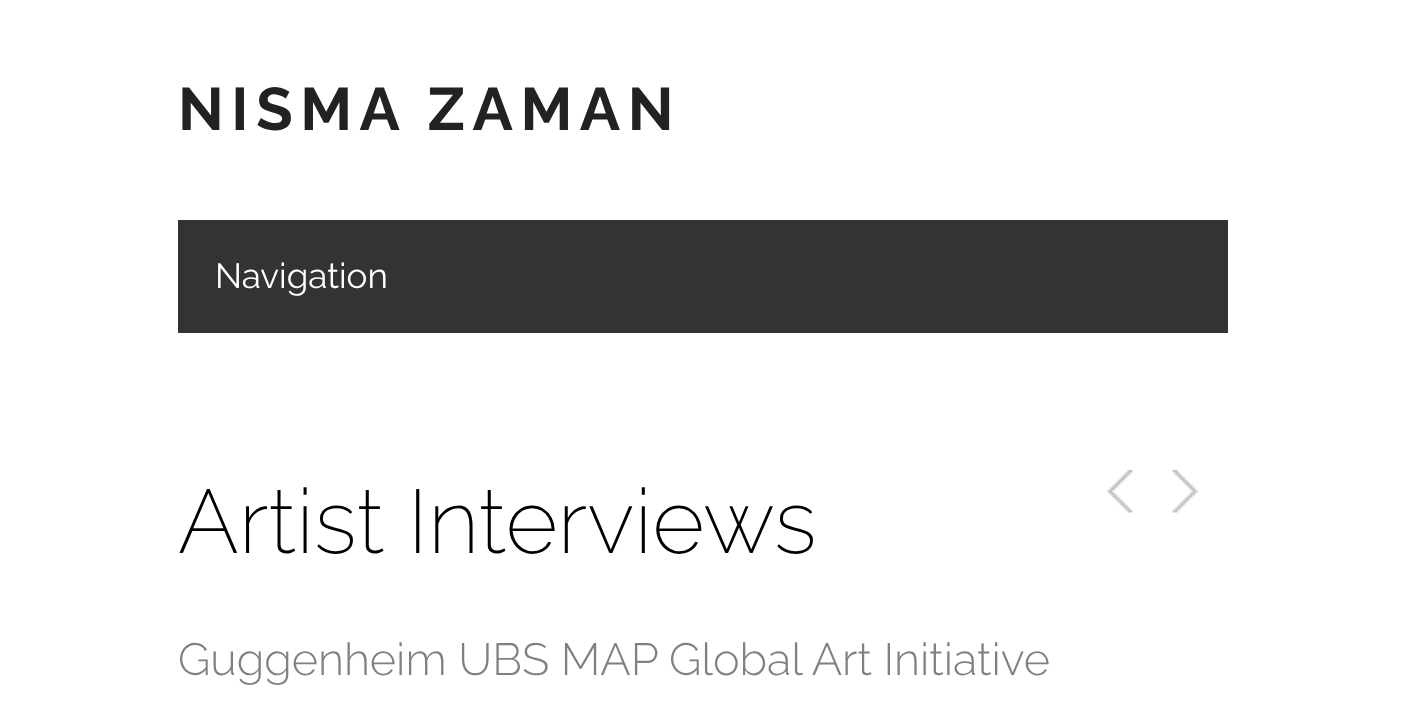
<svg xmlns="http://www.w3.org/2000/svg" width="1405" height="701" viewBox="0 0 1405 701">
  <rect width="100%" height="100%" fill="#fff"/>
  <path d="M178 220h1050v113H178z" fill="#333"/>
  <image x="1107" y="470" width="26" height="43" href="img/1.png"/>
  <image x="1172" y="470" width="27" height="43" href="img/2.png"/>
  <text x="178" y="130" font-family="Raleway" font-size="60" font-weight="bold" letter-spacing="7.5" fill="#222">NISMA ZAMAN</text>
  <text x="215" y="288" font-family="Raleway" font-size="35" fill="#fff">Navigation</text>
  <text x="178" y="553" font-family="Raleway" font-size="90" font-weight="200" fill="#000">Artist Interviews</text>
  <text x="178" y="675" font-family="Raleway" font-size="45" font-weight="300" fill="#808080">Guggenheim UBS MAP Global Art Initiative</text>
</svg>
